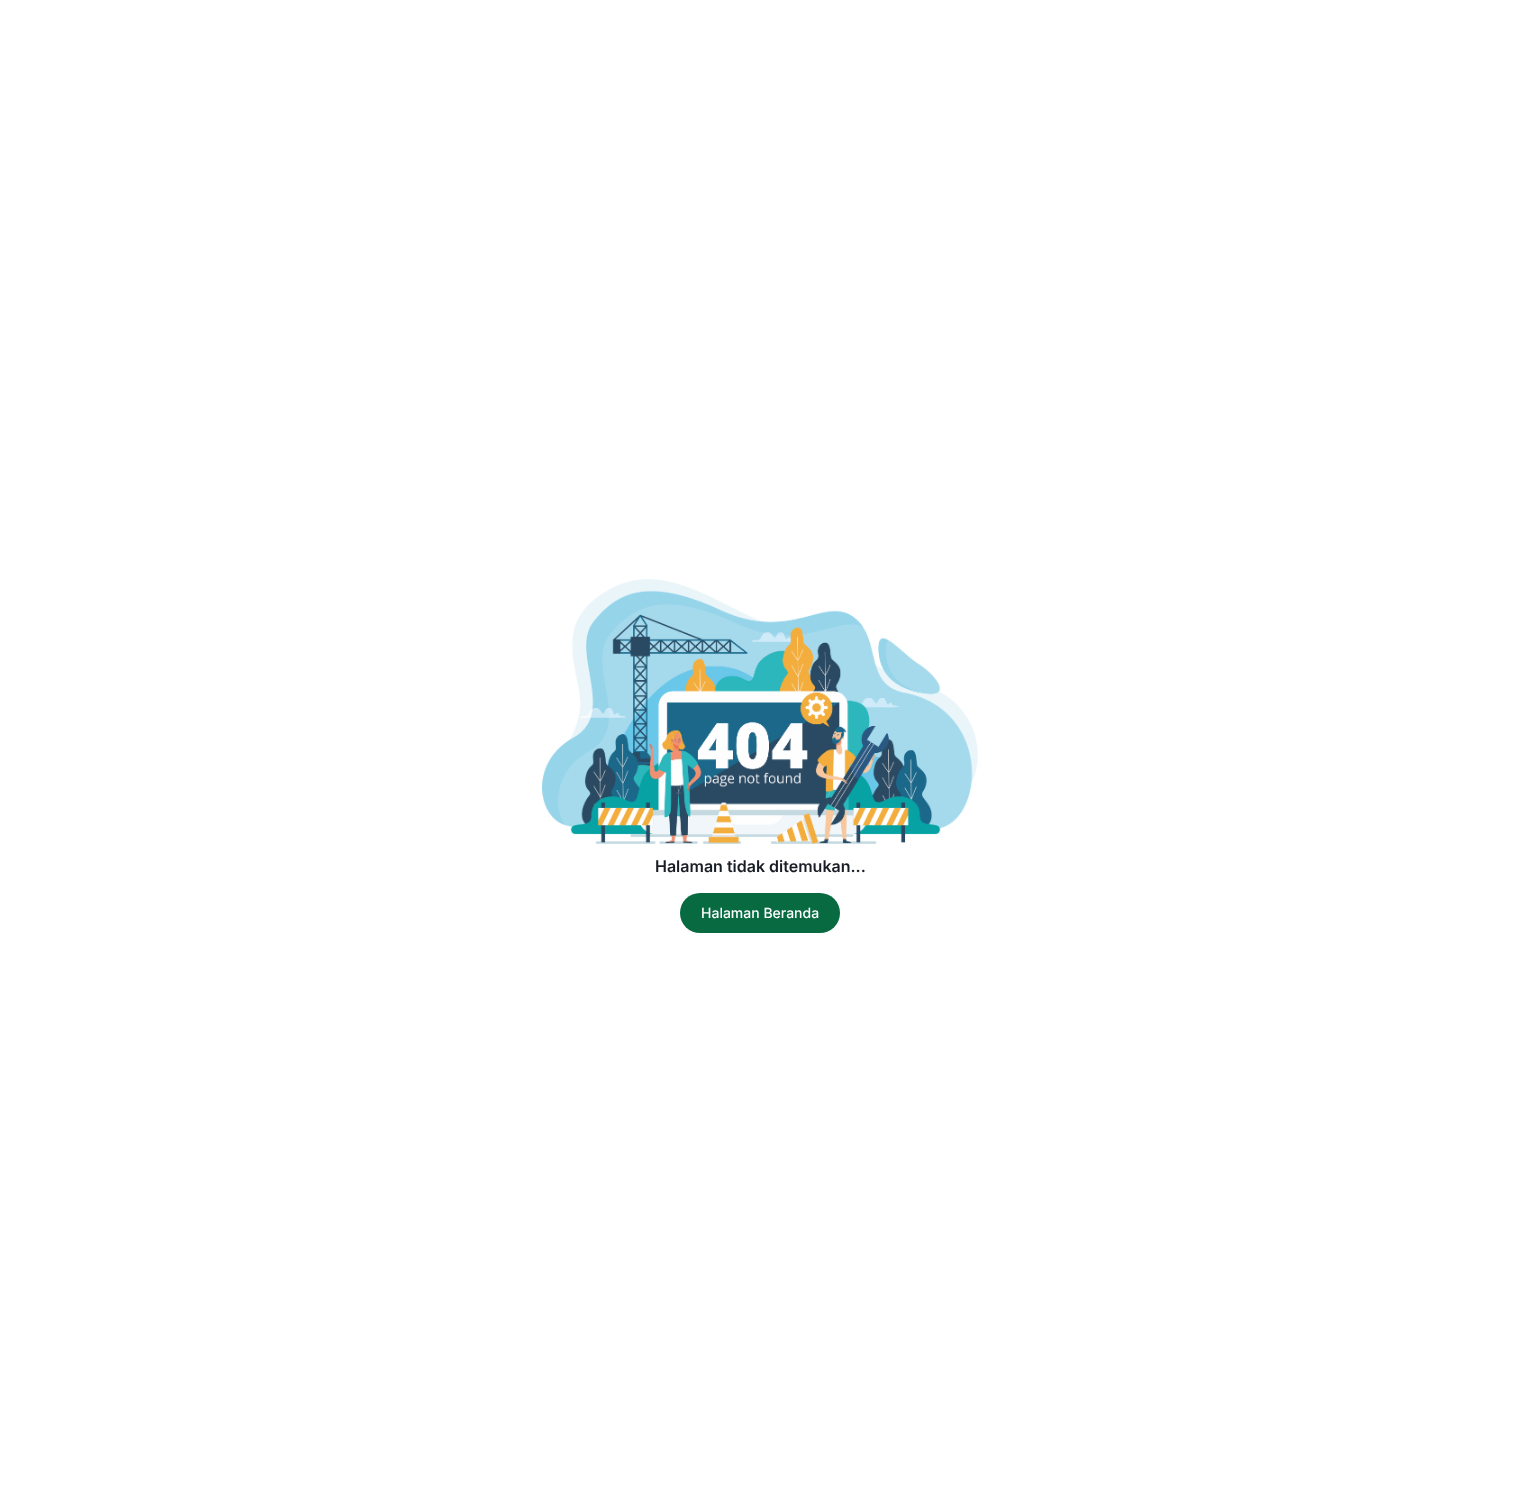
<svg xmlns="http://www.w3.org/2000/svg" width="1520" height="1512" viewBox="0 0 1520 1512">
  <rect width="100%" height="100%" fill="#fff"/>
  <image x="542" y="579" width="436" height="265" href="img/1.png"/>
  <rect x="680" y="893" width="160" height="40" rx="20" fill="#086a41"/>
  <text x="655" y="872" font-family="Inter" font-size="16" font-weight="600" fill="#181d25">Halaman tidak ditemukan...</text>
  <text x="701" y="918" font-family="Inter" font-size="14" font-weight="500" fill="#fff">Halaman Beranda</text>
</svg>
